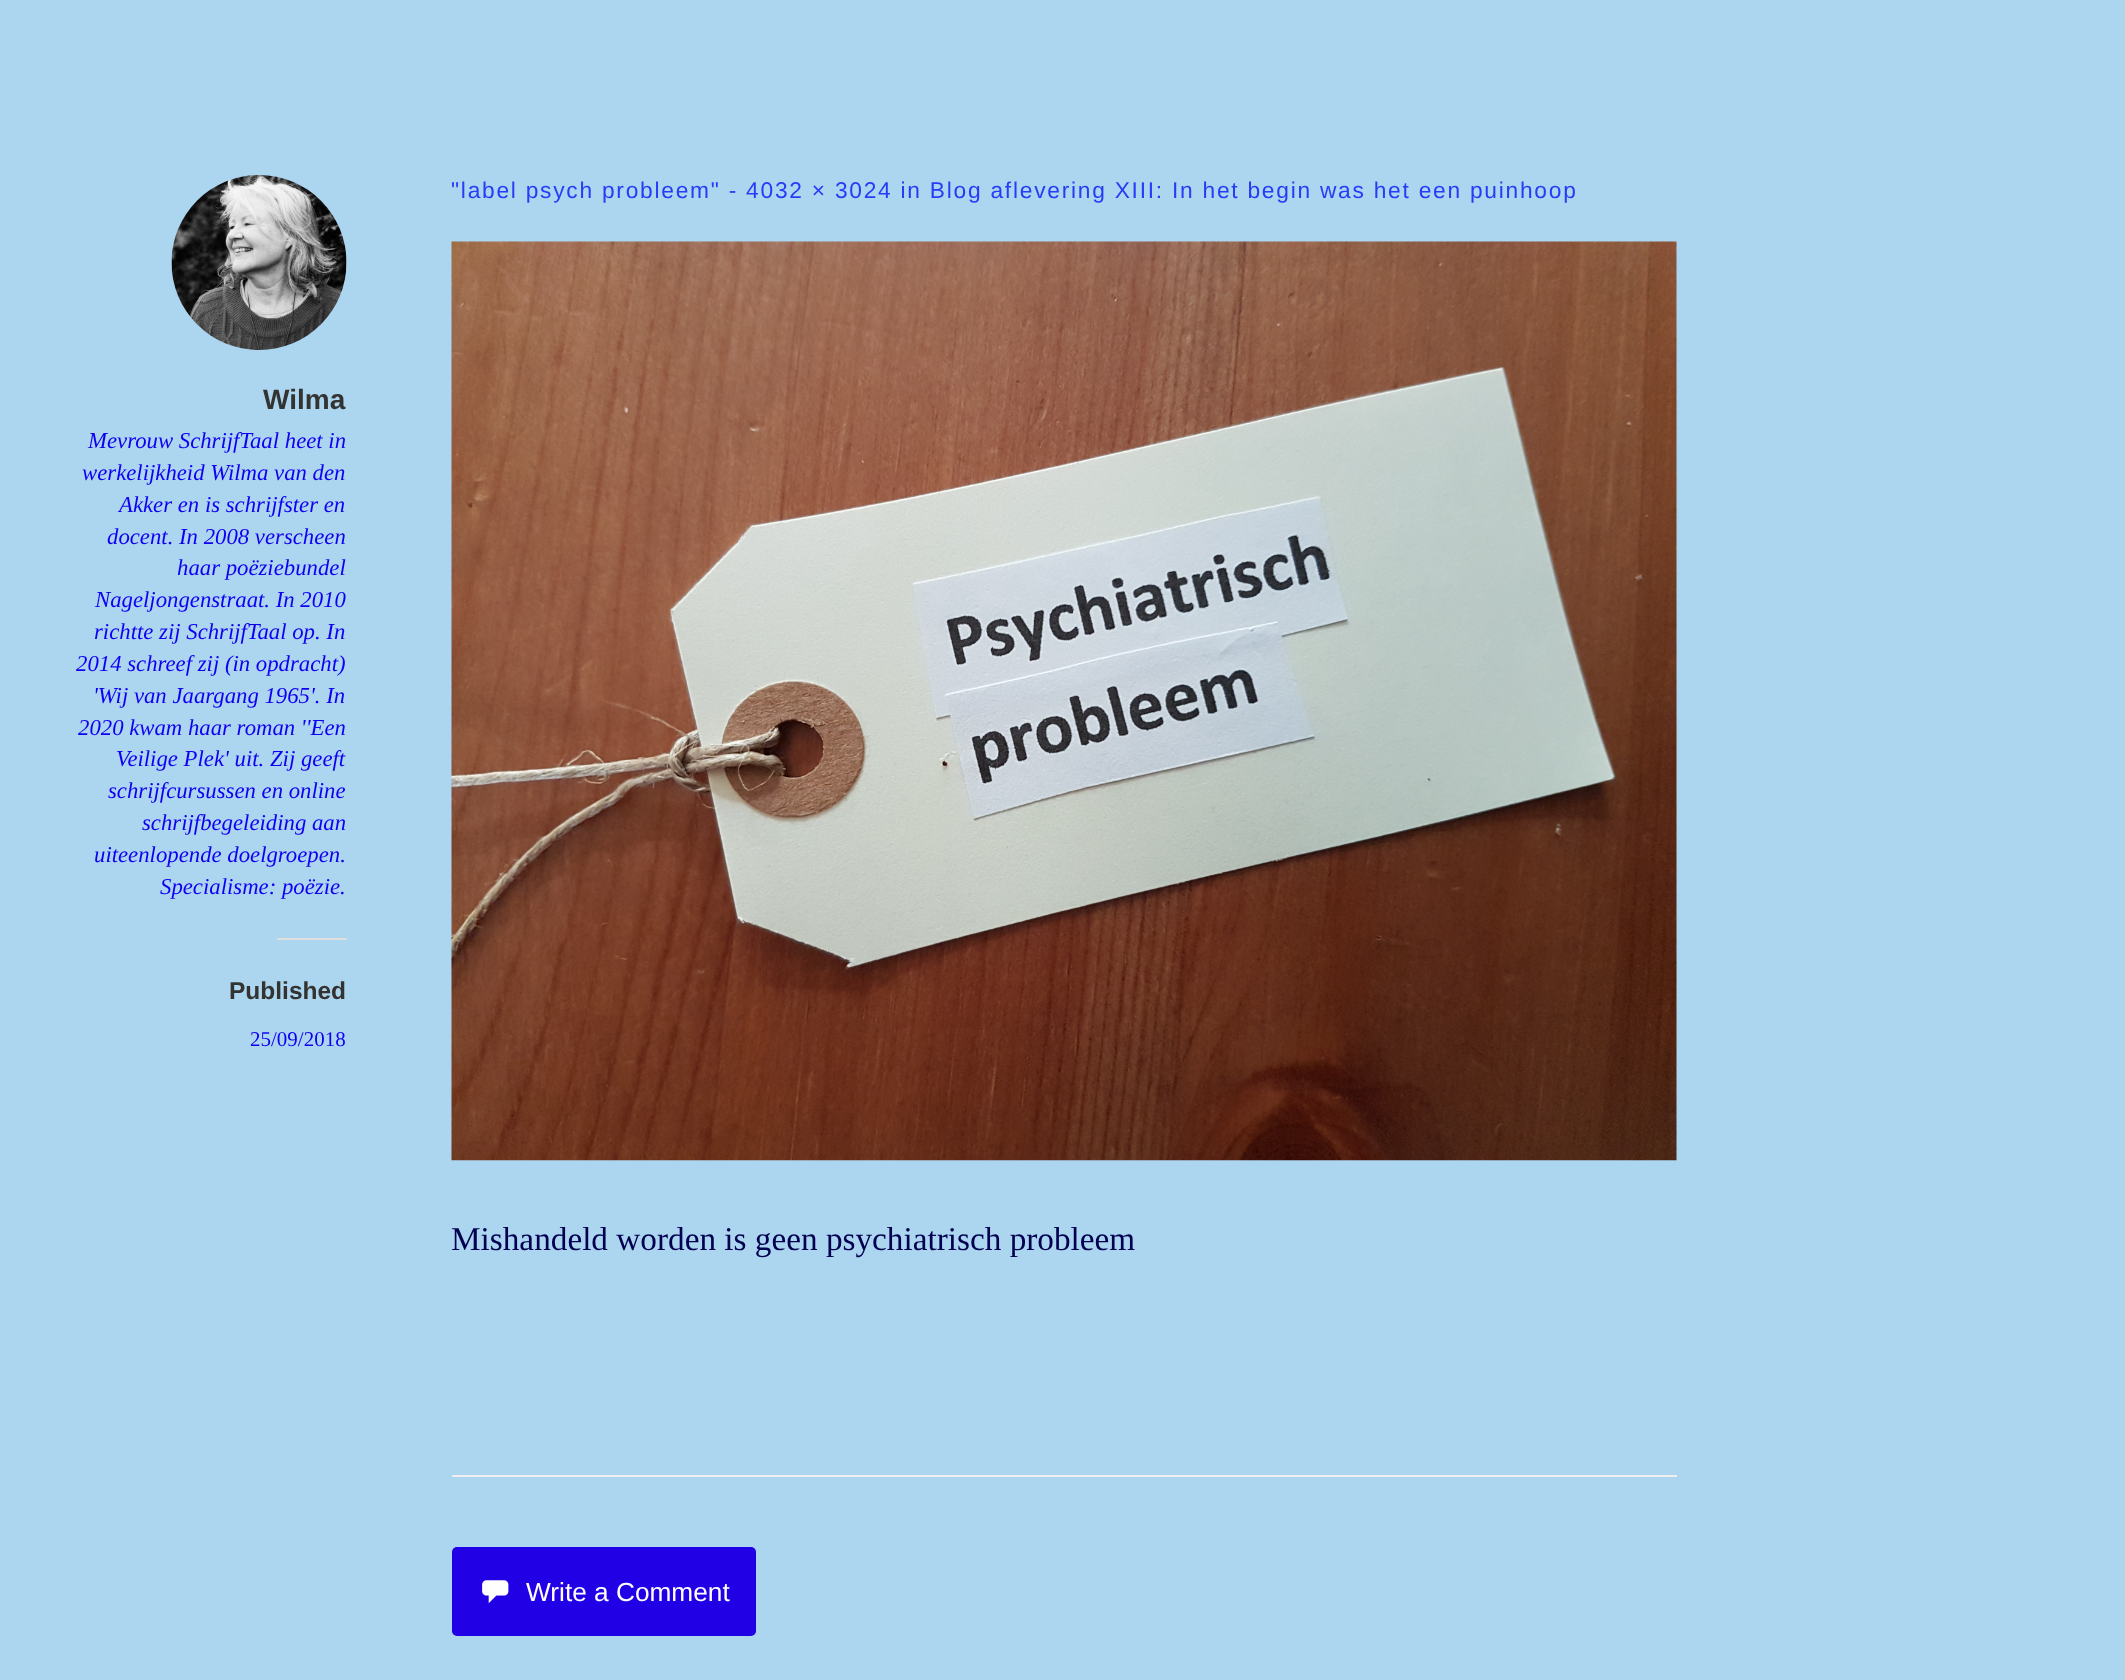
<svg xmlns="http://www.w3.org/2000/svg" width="2125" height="1680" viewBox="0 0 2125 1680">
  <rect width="100%" height="100%" fill="#acd5ef"/>
  <image x="171" y="175" width="176" height="175" href="img/1.png"/>
  <path d="M277 938h70v2H277z" fill="#dededc"/>
  <image x="451" y="241" width="1226" height="920" href="img/2.png"/>
  <path d="M452 1475h1225v2H452z" fill="#eee"/>
  <rect x="452" y="1547" width="304" height="89" rx="5" fill="#2200e5"/>
  <image x="482" y="1580" width="27" height="24" href="img/3.png"/>
  <text x="263" y="409" font-family="Liberation Sans" font-size="28" font-weight="bold" fill="#333332">Wilma</text>
  <g font-family="Liberation Serif" font-size="22.75" font-style="italic" fill="#1000f2">
    <text x="88" y="448">Mevrouw SchrijfTaal heet in</text>
    <text x="82" y="480">werkelijkheid Wilma van den</text>
    <text x="119" y="512">Akker en is schrijfster en</text>
    <text x="107" y="544">docent. In 2008 verscheen</text>
    <text x="177" y="575">haar poëziebundel</text>
    <text x="95" y="607">Nageljongenstraat. In 2010</text>
    <text x="94" y="639">richtte zij SchrijfTaal op. In</text>
    <text x="76" y="671">2014 schreef zij (in opdracht)</text>
    <text x="93" y="703">'Wij van Jaargang 1965'. In</text>
    <text x="78" y="735">2020 kwam haar roman ''Een</text>
    <text x="116" y="766">Veilige Plek' uit. Zij geeft</text>
    <text x="108" y="798">schrijfcursussen en online</text>
    <text x="142" y="830">schrijfbegeleiding aan</text>
    <text x="94" y="862">uiteenlopende doelgroepen.</text>
    <text x="160" y="894">Specialisme: poëzie.</text>
  </g>
  <text x="229" y="999" font-family="Liberation Sans" font-size="24.5" font-weight="bold" fill="#333332">Published</text>
  <text x="250" y="1046" font-family="Liberation Serif" font-size="21" fill="#1000f2">25/09/2018</text>
  <text x="451" y="198" font-family="Liberation Sans" font-size="22.75" letter-spacing="1.75" fill="#273cf7">"label psych probleem" - 4032 × 3024 in Blog aflevering XIII: In het begin was het een puinhoop</text>
  <text x="451" y="1250" font-family="Liberation Serif" font-size="33.25" fill="#000151">Mishandeld worden is geen psychiatrisch probleem</text>
  <text x="526" y="1601" font-family="Liberation Sans" font-size="26.25" fill="#fff">Write a Comment</text>
</svg>
